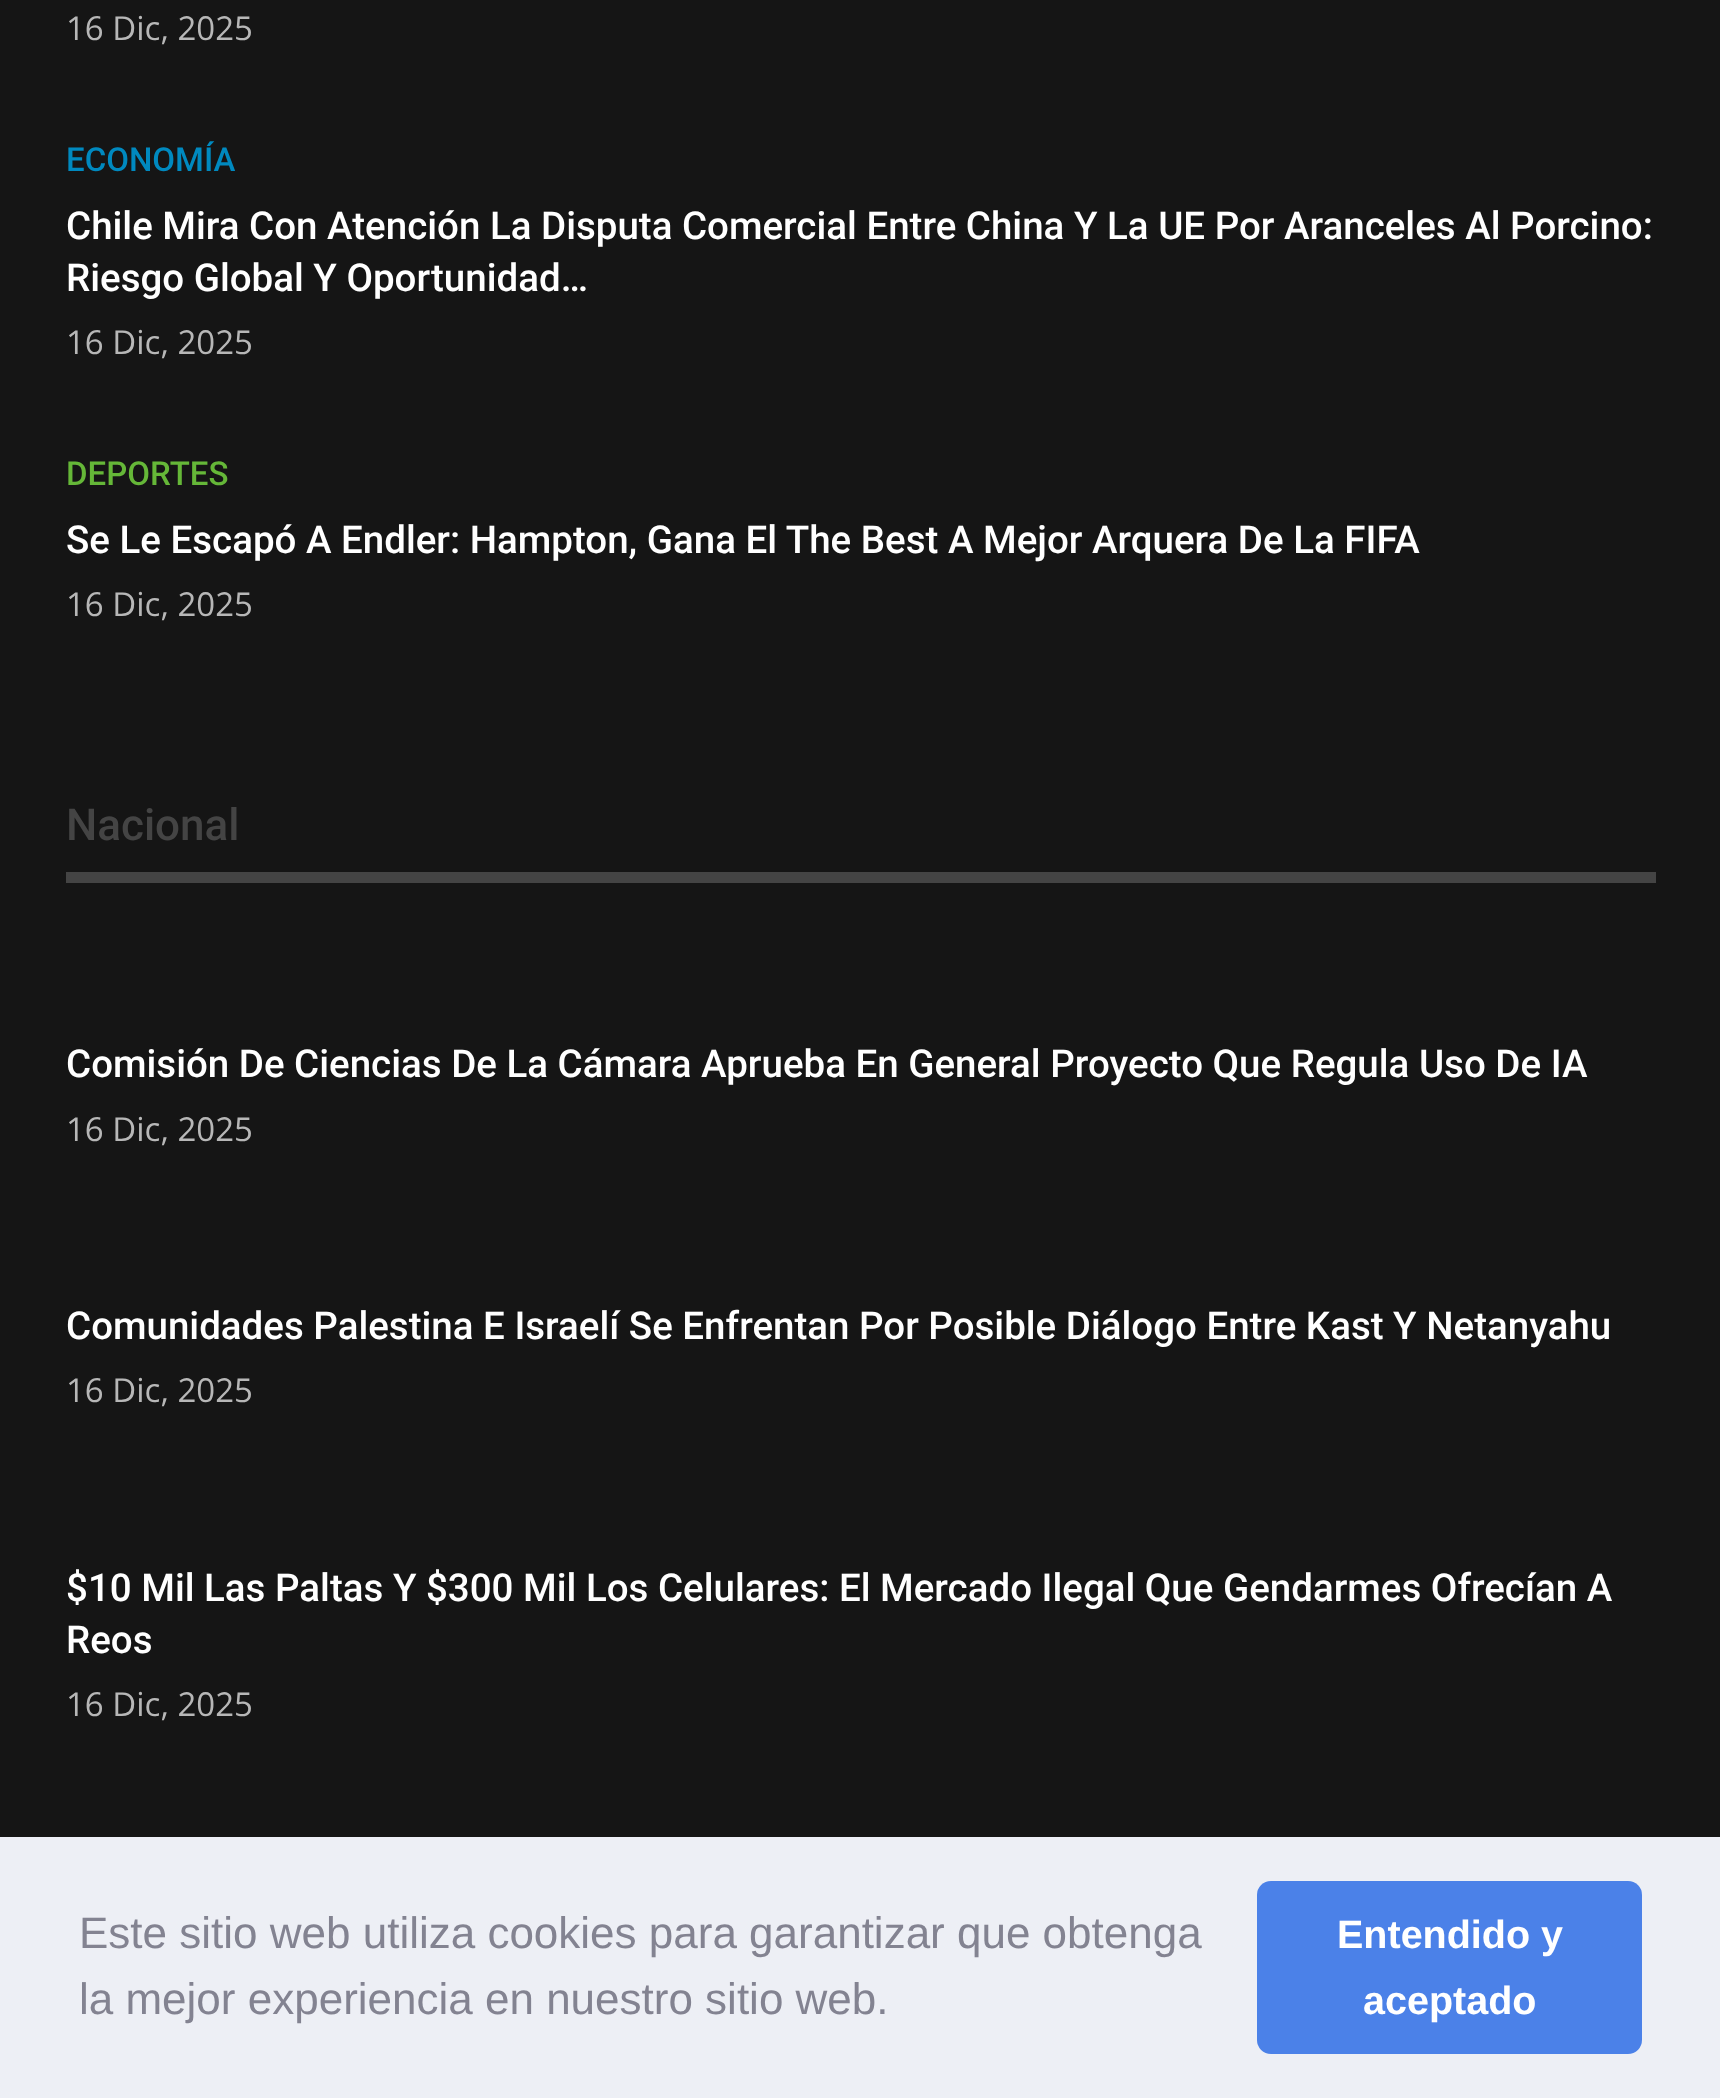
<svg xmlns="http://www.w3.org/2000/svg" width="1720" height="2098" viewBox="0 0 1720 2098">
  <rect width="100%" height="100%" fill="#151515"/>
  <path d="M66 872h1590v11H66z" fill="#444"/>
  <path d="M0 1837h1720v261H0z" fill="#edeff5"/>
  <rect x="1257" y="1881" width="385" height="173" rx="14" fill="#4b81e8"/>
  <text x="66" y="40" font-family="Open Sans" font-size="33" fill="#b7b7b7">16 Dic, 2025</text>
  <text x="66" y="171" font-family="Roboto" font-size="33" font-weight="500" fill="#0089bf">ECONOMÍA</text>
  <g font-family="Roboto" font-size="38.5" font-weight="500" fill="#fff">
    <text x="66" y="239">Chile Mira Con Atención La Disputa Comercial Entre China Y La UE Por Aranceles Al Porcino:</text>
    <text x="66" y="291">Riesgo Global Y Oportunidad…</text>
  </g>
  <text x="66" y="354" font-family="Open Sans" font-size="33" fill="#b7b7b7">16 Dic, 2025</text>
  <text x="66" y="485" font-family="Roboto" font-size="33" font-weight="500" fill="#65b738">DEPORTES</text>
  <text x="66" y="553" font-family="Roboto" font-size="38.5" font-weight="500" fill="#fff">Se Le Escapó A Endler: Hampton, Gana El The Best A Mejor Arquera De La FIFA</text>
  <text x="66" y="616" font-family="Open Sans" font-size="33" fill="#b7b7b7">16 Dic, 2025</text>
  <text x="66" y="840" font-family="Roboto" font-size="44" font-weight="500" fill="#444">Nacional</text>
  <text x="66" y="1077" font-family="Roboto" font-size="38.5" font-weight="500" fill="#fff">Comisión De Ciencias De La Cámara Aprueba En General Proyecto Que Regula Uso De IA</text>
  <text x="66" y="1141" font-family="Open Sans" font-size="33" fill="#b7b7b7">16 Dic, 2025</text>
  <text x="66" y="1339" font-family="Roboto" font-size="38.5" font-weight="500" fill="#fff">Comunidades Palestina E Israelí Se Enfrentan Por Posible Diálogo Entre Kast Y Netanyahu</text>
  <text x="66" y="1402" font-family="Open Sans" font-size="33" fill="#b7b7b7">16 Dic, 2025</text>
  <g font-family="Roboto" font-size="38.5" font-weight="500" fill="#fff">
    <text x="66" y="1601">$10 Mil Las Paltas Y $300 Mil Los Celulares: El Mercado Ilegal Que Gendarmes Ofrecían A</text>
    <text x="66" y="1653">Reos</text>
  </g>
  <text x="66" y="1716" font-family="Open Sans" font-size="33" fill="#b7b7b7">16 Dic, 2025</text>
  <g font-family="Liberation Sans" font-size="44" fill="#838391">
    <text x="79" y="1948">Este sitio web utiliza cookies para garantizar que obtenga</text>
    <text x="79" y="2014">la mejor experiencia en nuestro sitio web.</text>
  </g>
  <g font-family="Liberation Sans" font-size="39.5" font-weight="bold" fill="#fff">
    <text x="1337" y="1948">Entendido y</text>
    <text x="1363" y="2014">aceptado</text>
  </g>
</svg>
